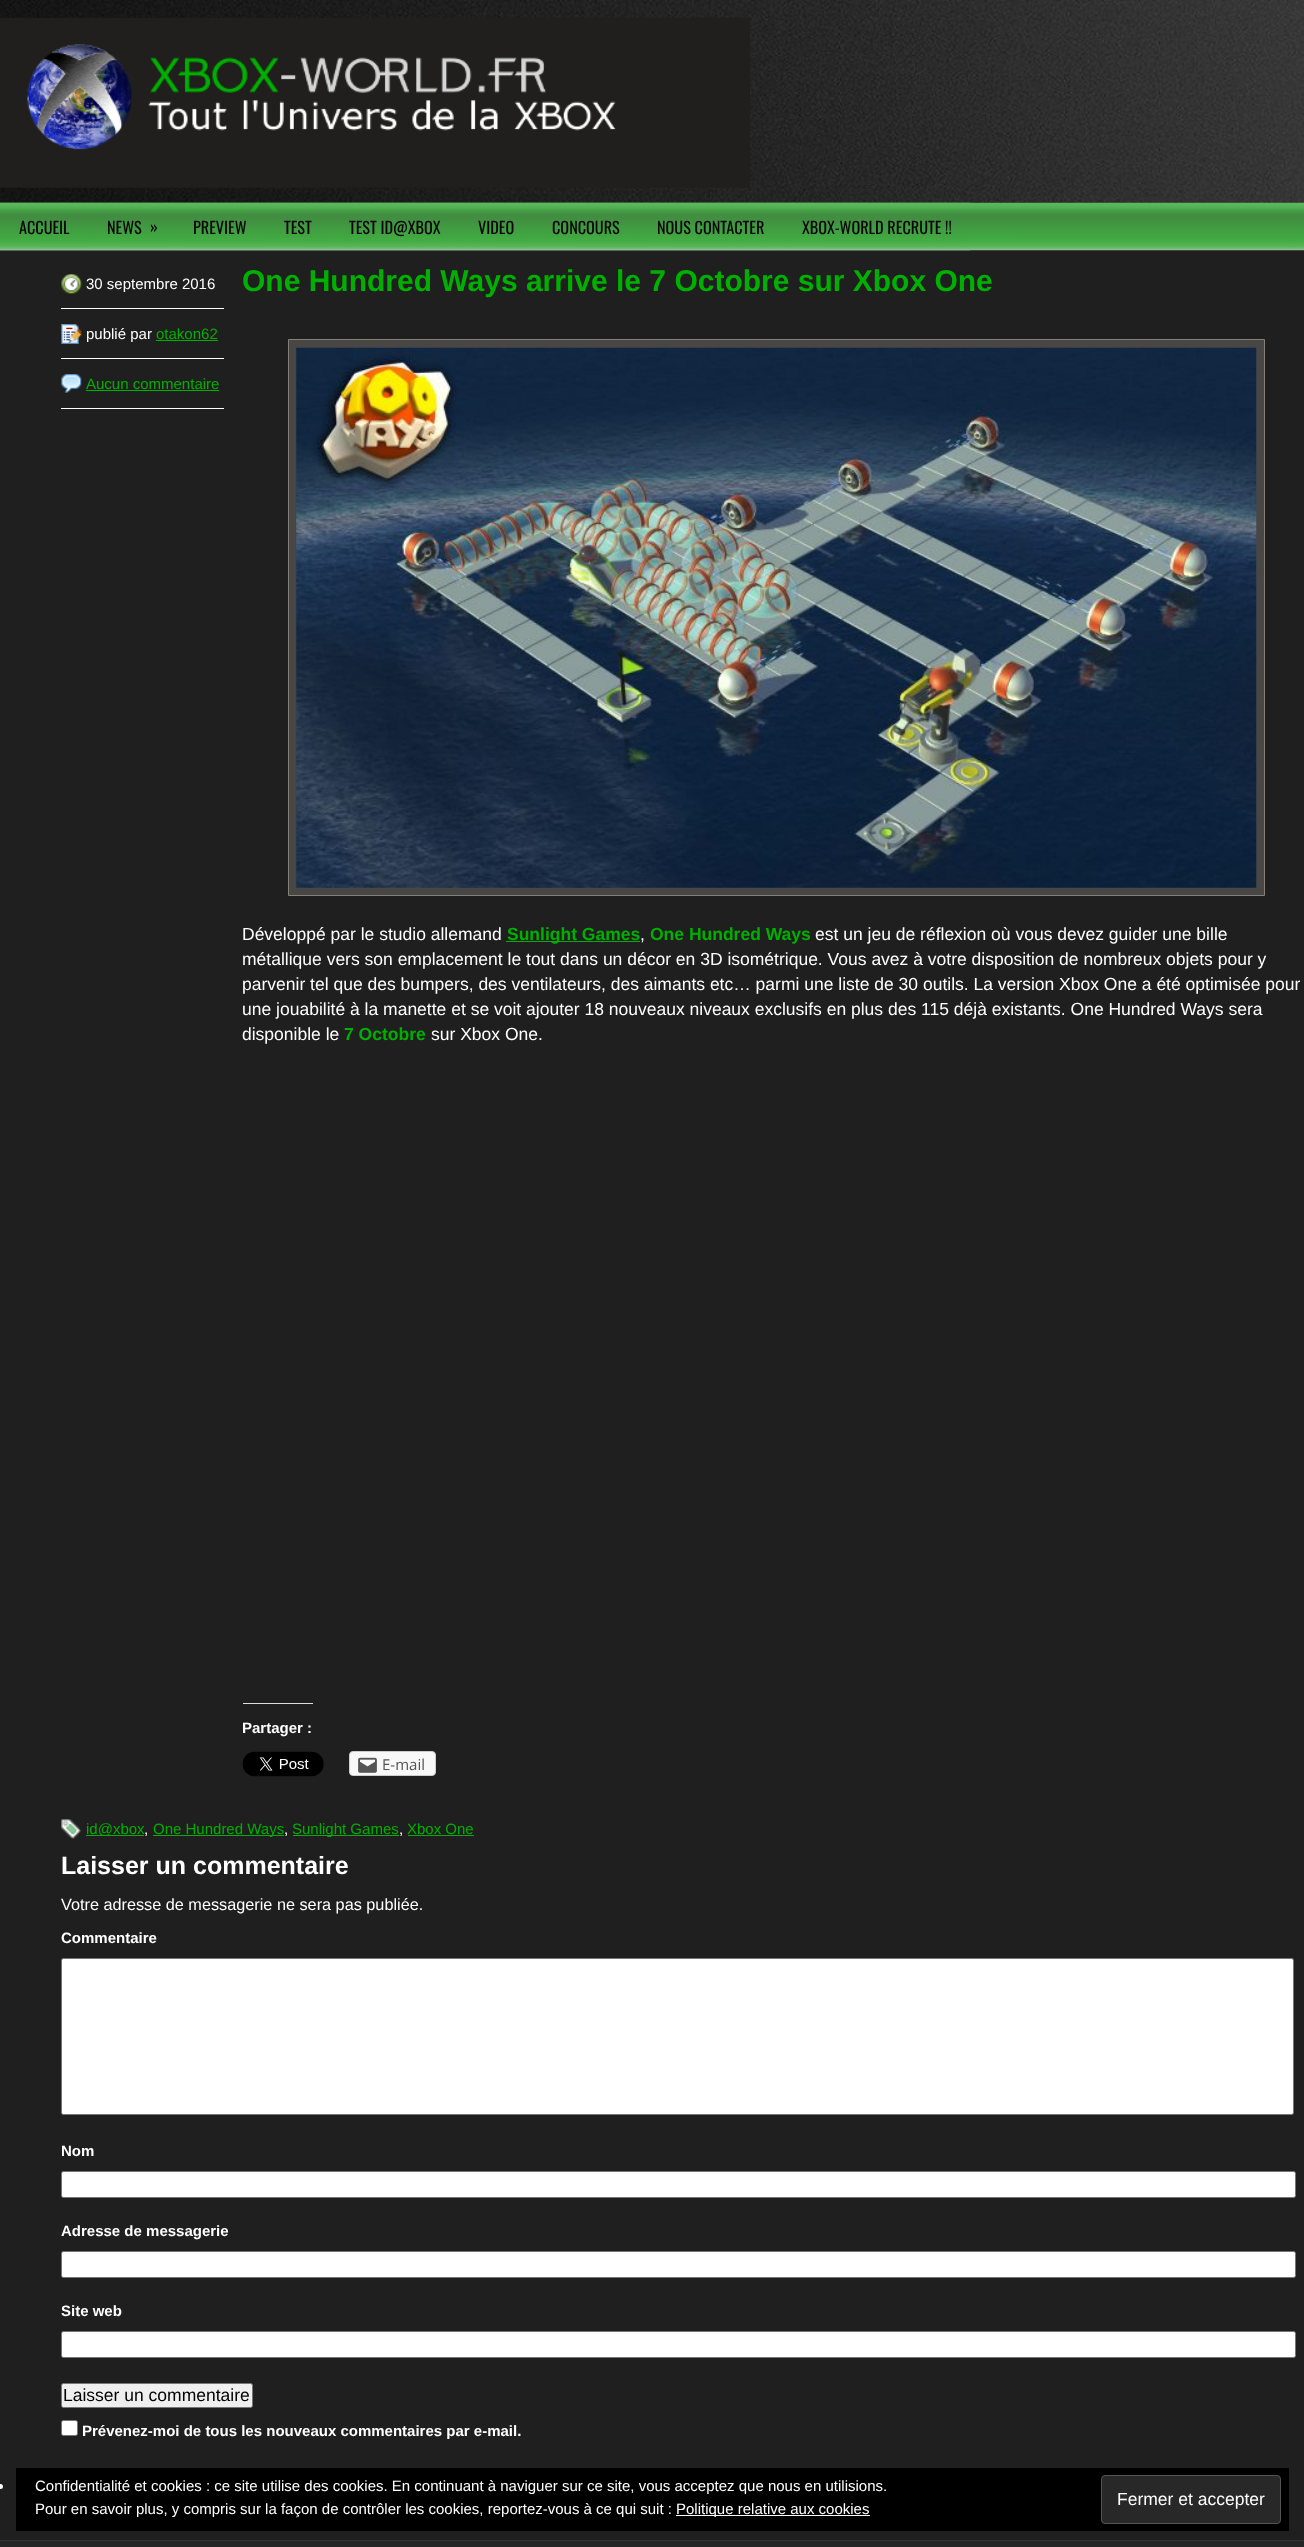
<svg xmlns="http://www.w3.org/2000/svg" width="1304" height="2547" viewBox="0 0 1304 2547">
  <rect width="100%" height="100%" fill="#fff"/>
  <image x="0" y="0" width="1304" height="203" href="img/1.png"/>
  <image x="0" y="17" width="750" height="171" href="img/2.png"/>
  <path d="M0 250h1304v2290H0z" fill="#201f1f"/>
  <image x="0" y="202" width="1304" height="49" href="img/3.png"/>
  <image x="0" y="202" width="88" height="49" href="img/4.png"/>
  <image x="87" y="202" width="87" height="49" href="img/5.png"/>
  <image x="173" y="202" width="92" height="49" href="img/6.png"/>
  <image x="265" y="202" width="65" height="49" href="img/7.png"/>
  <image x="330" y="202" width="130" height="49" href="img/8.png"/>
  <image x="460" y="202" width="73" height="49" href="img/9.png"/>
  <image x="532" y="202" width="107" height="49" href="img/10.png"/>
  <image x="638" y="202" width="146" height="49" href="img/11.png"/>
  <image x="783" y="202" width="187" height="49" href="img/12.png"/>
  <image x="61" y="274" width="21" height="20" href="img/13.png"/>
  <path d="M61 308h163v1H61z" fill="#fff"/>
  <image x="61" y="324" width="21" height="20" href="img/14.png"/>
  <path d="M61 358h163v1H61z" fill="#fff"/>
  <path d="M156 340h62v1H156z" fill="#00b000"/>
  <image x="61" y="374" width="21" height="20" href="img/15.png"/>
  <path d="M61 408h163v1H61z" fill="#fff"/>
  <path d="M86 390h133v1H86z" fill="#00b000"/>
  <path d="M288.5 339.5h976v556H288.5z" fill="#484746" stroke="#86807b"/>
  <image x="296" y="347" width="961" height="541" href="img/16.png"/>
  <path d="M506 941h134v1H506z" fill="#00b000"/>
  <path d="M243 1703h70v1H243z" fill="#ddd"/>
  <image x="242" y="1751" width="82" height="26" href="img/17.png"/>
  <rect x="349.5" y="1751.5" width="86" height="24" rx="3.5" fill="#f8f8f8" stroke="#ccc"/>
  <image x="358" y="1757" width="19" height="16" href="img/18.png"/>
  <image x="61" y="1819" width="21" height="20" href="img/19.png"/>
  <path d="M86 1835h58v1H86z" fill="#00b000"/>
  <path d="M153 1835h131v1H153z" fill="#00b000"/>
  <path d="M293 1835h106v1H293z" fill="#00b000"/>
  <path d="M408 1835h66v1H408z" fill="#00b000"/>
  <rect x="61.5" y="1958.5" width="1232" height="156" rx="2" fill="#fff" stroke="#767676"/>
  <rect x="61.5" y="2171.5" width="1234" height="26" rx="2" fill="#fff" stroke="#767676"/>
  <rect x="61.5" y="2251.5" width="1234" height="26" rx="2" fill="#fff" stroke="#767676"/>
  <rect x="61.5" y="2331.5" width="1234" height="26" rx="2" fill="#fff" stroke="#767676"/>
  <rect x="61.5" y="2383.5" width="191" height="24" rx="2" fill="#efefef" stroke="#767676"/>
  <rect x="61.5" y="2420.5" width="16" height="15" rx="2" fill="#fff" stroke="#767676"/>
  <path d="M0 2541h1304v6H0z" fill="#252525"/>
  <path d="M0 2540h1304v1H0z" fill="#333335"/>
  <circle cx="0.5" cy="2486.5" r="2.5" fill="#fff"/>
  <path d="M16 2468h1273v63H16z" fill="#000"/>
  <path d="M676 2515h194v1H676z" fill="#fff"/>
  <rect x="1101.5" y="2475.5" width="179" height="48" rx="3.5" fill="#282828" stroke="#535353"/>
  <g font-family="Oswald" font-size="16.25" fill="#060506">
    <text x="19" y="234">ACCUEIL</text>
    <text x="107" y="234">NEWS</text>
    <text x="150" y="233">»</text>
    <text x="193" y="234">PREVIEW</text>
    <text x="284" y="234">TEST</text>
    <text x="349" y="234">TEST ID@XBOX</text>
    <text x="478" y="234">VIDEO</text>
    <text x="552" y="234">CONCOURS</text>
    <text x="657" y="234">NOUS CONTACTER</text>
    <text x="802" y="234">XBOX-WORLD RECRUTE !!</text>
  </g>
  <g font-family="Liberation Sans" font-size="15" fill="#fff">
    <text x="86" y="289">30 septembre 2016</text>
    <text x="86" y="339">publié par</text>
  </g>
  <g font-family="Liberation Sans" font-size="15" fill="#00b000">
    <text x="156" y="339">otakon62</text>
    <text x="86" y="389">Aucun commentaire</text>
  </g>
  <text x="242" y="291" font-family="Liberation Sans" font-size="30" font-weight="bold" fill="#00b000">One Hundred Ways arrive le 7 Octobre sur Xbox One</text>
  <text x="242" y="940" font-family="Liberation Sans" font-size="17.5" fill="#fff">Développé par le studio allemand</text>
  <text x="507" y="940" font-family="Liberation Sans" font-size="17.5" font-weight="bold" fill="#00b000">Sunlight Games</text>
  <text x="640" y="940" font-family="Liberation Sans" font-size="17.5" fill="#fff">,</text>
  <text x="650" y="940" font-family="Liberation Sans" font-size="17.5" font-weight="bold" fill="#00b000">One Hundred Ways</text>
  <g font-family="Liberation Sans" font-size="17.5" fill="#fff">
    <text x="815" y="940">est un jeu de réflexion où vous devez guider une bille</text>
    <text x="242" y="965">métallique vers son emplacement le tout dans un décor en 3D isométrique. Vous avez à votre disposition de nombreux objets pour y</text>
    <text x="242" y="990">parvenir tel que des bumpers, des ventilateurs, des aimants etc… parmi une liste de 30 outils. La version Xbox One a été optimisée pour</text>
    <text x="242" y="1015">une jouabilité à la manette et se voit ajouter 18 nouveaux niveaux exclusifs en plus des 115 déjà existants. One Hundred Ways sera</text>
    <text x="242" y="1040">disponible le</text>
  </g>
  <text x="344" y="1040" font-family="Liberation Sans" font-size="17.5" font-weight="bold" fill="#00b000">7 Octobre</text>
  <text x="431" y="1040" font-family="Liberation Sans" font-size="17.5" fill="#fff">sur Xbox One.</text>
  <text x="242" y="1733" font-family="Liberation Sans" font-size="15" font-weight="bold" fill="#fff">Partager :</text>
  <text x="382" y="1770" font-family="Open Sans" font-size="15" fill="#545454">E-mail</text>
  <text x="86" y="1834" font-family="Liberation Sans" font-size="15" fill="#00b000">id@xbox</text>
  <text x="144" y="1834" font-family="Liberation Sans" font-size="15" fill="#fff">,</text>
  <text x="153" y="1834" font-family="Liberation Sans" font-size="15" fill="#00b000">One Hundred Ways</text>
  <text x="284" y="1834" font-family="Liberation Sans" font-size="15" fill="#fff">,</text>
  <text x="292" y="1834" font-family="Liberation Sans" font-size="15" fill="#00b000">Sunlight Games</text>
  <text x="399" y="1834" font-family="Liberation Sans" font-size="15" fill="#fff">,</text>
  <text x="407" y="1834" font-family="Liberation Sans" font-size="15" fill="#00b000">Xbox One</text>
  <text x="61" y="1874" font-family="Liberation Sans" font-size="25" font-weight="bold" fill="#fff">Laisser un commentaire</text>
  <text x="61" y="1910" font-family="Liberation Sans" font-size="16.25" fill="#fff">Votre adresse de messagerie ne sera pas publiée.</text>
  <g font-family="Liberation Sans" font-size="15" font-weight="bold" fill="#fff">
    <text x="61" y="1943">Commentaire</text>
    <text x="61" y="2156">Nom</text>
    <text x="61" y="2236">Adresse de messagerie</text>
    <text x="61" y="2316">Site web</text>
  </g>
  <text x="63" y="2401" font-family="Liberation Sans" font-size="17.5" fill="#000">Laisser un commentaire</text>
  <text x="82" y="2436" font-family="Liberation Sans" font-size="15" font-weight="bold" fill="#fff">Prévenez-moi de tous les nouveaux commentaires par e-mail.</text>
  <g font-family="Liberation Sans" font-size="15" fill="#fff">
    <text x="35" y="2491">Confidentialité et cookies : ce site utilise des cookies. En continuant à naviguer sur ce site, vous acceptez que nous en utilisions.</text>
    <text x="35" y="2514">Pour en savoir plus, y compris sur la façon de contrôler les cookies, reportez-vous à ce qui suit :</text>
    <text x="676" y="2514">Politique relative aux cookies</text>
  </g>
  <text x="1117" y="2505" font-family="Liberation Sans" font-size="17.5" fill="#fff">Fermer et accepter</text>
</svg>
